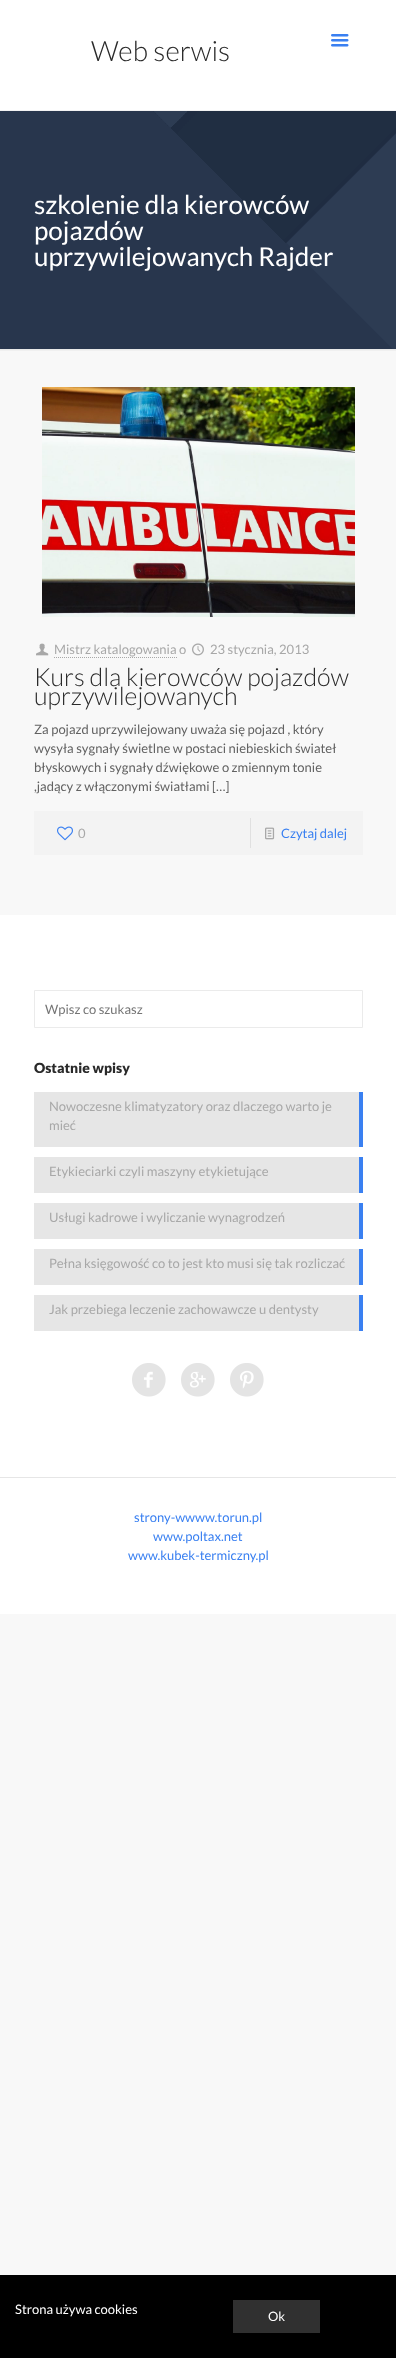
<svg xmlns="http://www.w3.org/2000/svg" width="396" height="2358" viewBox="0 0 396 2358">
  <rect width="100%" height="100%" fill="#f8f8f8"/>
  <image x="0" y="111" width="396" height="238" href="img/1.png"/>
  <path d="M0 0h396v110H0z" fill="#fff"/>
  <path d="M0 110h396v1H0z" fill="#f2f2f2"/>
  <image x="331" y="34" width="18" height="13" href="img/2.png"/>
  <image x="0" y="349" width="396" height="2" href="img/3.png"/>
  <image x="42" y="387" width="313" height="230" href="img/4.png"/>
  <image x="36" y="643" width="13" height="13" href="img/5.png"/>
  <path d="M54 657.5H177" fill="none" stroke="#a8a8a8" stroke-dasharray="1 1"/>
  <image x="192" y="643" width="12" height="13" href="img/6.png"/>
  <path d="M34 811h329v44H34z" fill="#f3f3f3"/>
  <image x="57" y="826" width="16" height="15" href="img/7.png"/>
  <path d="M250 818h1v30H250z" fill="#e0e0e0"/>
  <image x="265" y="827" width="10" height="13" href="img/8.png"/>
  <path d="M0 915h396v699H0z" fill="#fff"/>
  <path d="M34.5 990.5h328v37H34.5z" fill="none" stroke="#ebebeb"/>
  <path d="M34 1092h325v55H34z" fill="#e6e6e6"/>
  <path d="M359 1092h4v55H359z" fill="#3a80f1"/>
  <path d="M34 1157h325v36H34z" fill="#e6e6e6"/>
  <path d="M359 1157h4v36H359z" fill="#3a80f1"/>
  <path d="M34 1203h325v36H34z" fill="#e6e6e6"/>
  <path d="M359 1203h4v36H359z" fill="#3a80f1"/>
  <path d="M34 1249h325v36H34z" fill="#e6e6e6"/>
  <path d="M359 1249h4v36H359z" fill="#3a80f1"/>
  <path d="M34 1295h325v36H34z" fill="#e6e6e6"/>
  <path d="M359 1295h4v36H359z" fill="#3a80f1"/>
  <image x="132" y="1363" width="34" height="34" href="img/9.png"/>
  <image x="181" y="1363" width="34" height="34" href="img/10.png"/>
  <image x="230" y="1363" width="34" height="34" href="img/11.png"/>
  <path d="M0 1477h396v1H0z" fill="#e6e6e6"/>
  <path d="M0 2275h396v83H0z" fill="#000"/>
  <path d="M233 2300h87v33H233z" fill="#303030"/>
  <text x="91" y="61" font-family="Lato" font-size="28" font-weight="300" fill="#2a2a2a">Web serwis</text>
  <g font-family="Lato" font-size="26" fill="#fff">
    <text x="34" y="214">szkolenie dla kierowców</text>
    <text x="34" y="240">pojazdów</text>
    <text x="34" y="266">uprzywilejowanych Rajder</text>
  </g>
  <g font-family="Lato" font-size="13" fill="#a8a8a8">
    <text x="54" y="654">Mistrz katalogowania o</text>
    <text x="210" y="654">23 stycznia, 2013</text>
  </g>
  <g font-family="Lato" font-size="25" font-weight="300" fill="#2a2a2a">
    <text x="34" y="686">Kurs dla kierowców pojazdów</text>
    <text x="34" y="705">uprzywilejowanych</text>
  </g>
  <g font-family="Lato" font-size="13" fill="#626262">
    <text x="34" y="734">Za pojazd uprzywilejowany uważa się pojazd , który</text>
    <text x="34" y="753">wysyła sygnały świetlne w postaci niebieskich świateł</text>
    <text x="34" y="772">błyskowych i sygnały dźwiękowe o zmiennym tonie</text>
    <text x="34" y="791">,jadący z włączonymi światłami […]</text>
  </g>
  <text x="78" y="838" font-family="Lato" font-size="13" fill="#a8a8a8">0</text>
  <text x="281" y="838" font-family="Lato" font-size="13" fill="#3a80f1">Czytaj dalej</text>
  <text x="45" y="1014" font-family="Lato" font-size="13" fill="#757575">Wpisz co szukasz</text>
  <text x="34" y="1073" font-family="Lato" font-size="14" font-weight="900" fill="#2a2a2a">Ostatnie wpisy</text>
  <g font-family="Lato" font-size="13" fill="#a8a8a8">
    <text x="49" y="1111">Nowoczesne klimatyzatory oraz dlaczego warto je</text>
    <text x="49" y="1130">mieć</text>
    <text x="49" y="1176">Etykieciarki czyli maszyny etykietujące</text>
    <text x="49" y="1222">Usługi kadrowe i wyliczanie wynagrodzeń</text>
    <text x="49" y="1268">Pełna księgowość co to jest kto musi się tak rozliczać</text>
    <text x="49" y="1314">Jak przebiega leczenie zachowawcze u dentysty</text>
  </g>
  <g font-family="Lato" font-size="13" fill="#3a80f1">
    <text x="134" y="1522">strony-wwww.torun.pl</text>
    <text x="153" y="1541">www.poltax.net</text>
    <text x="128" y="1560">www.kubek-termiczny.pl</text>
  </g>
  <g font-family="Lato" font-size="13" fill="#fff">
    <text x="15" y="2314">Strona używa cookies</text>
    <text x="268" y="2321">Ok</text>
  </g>
</svg>
